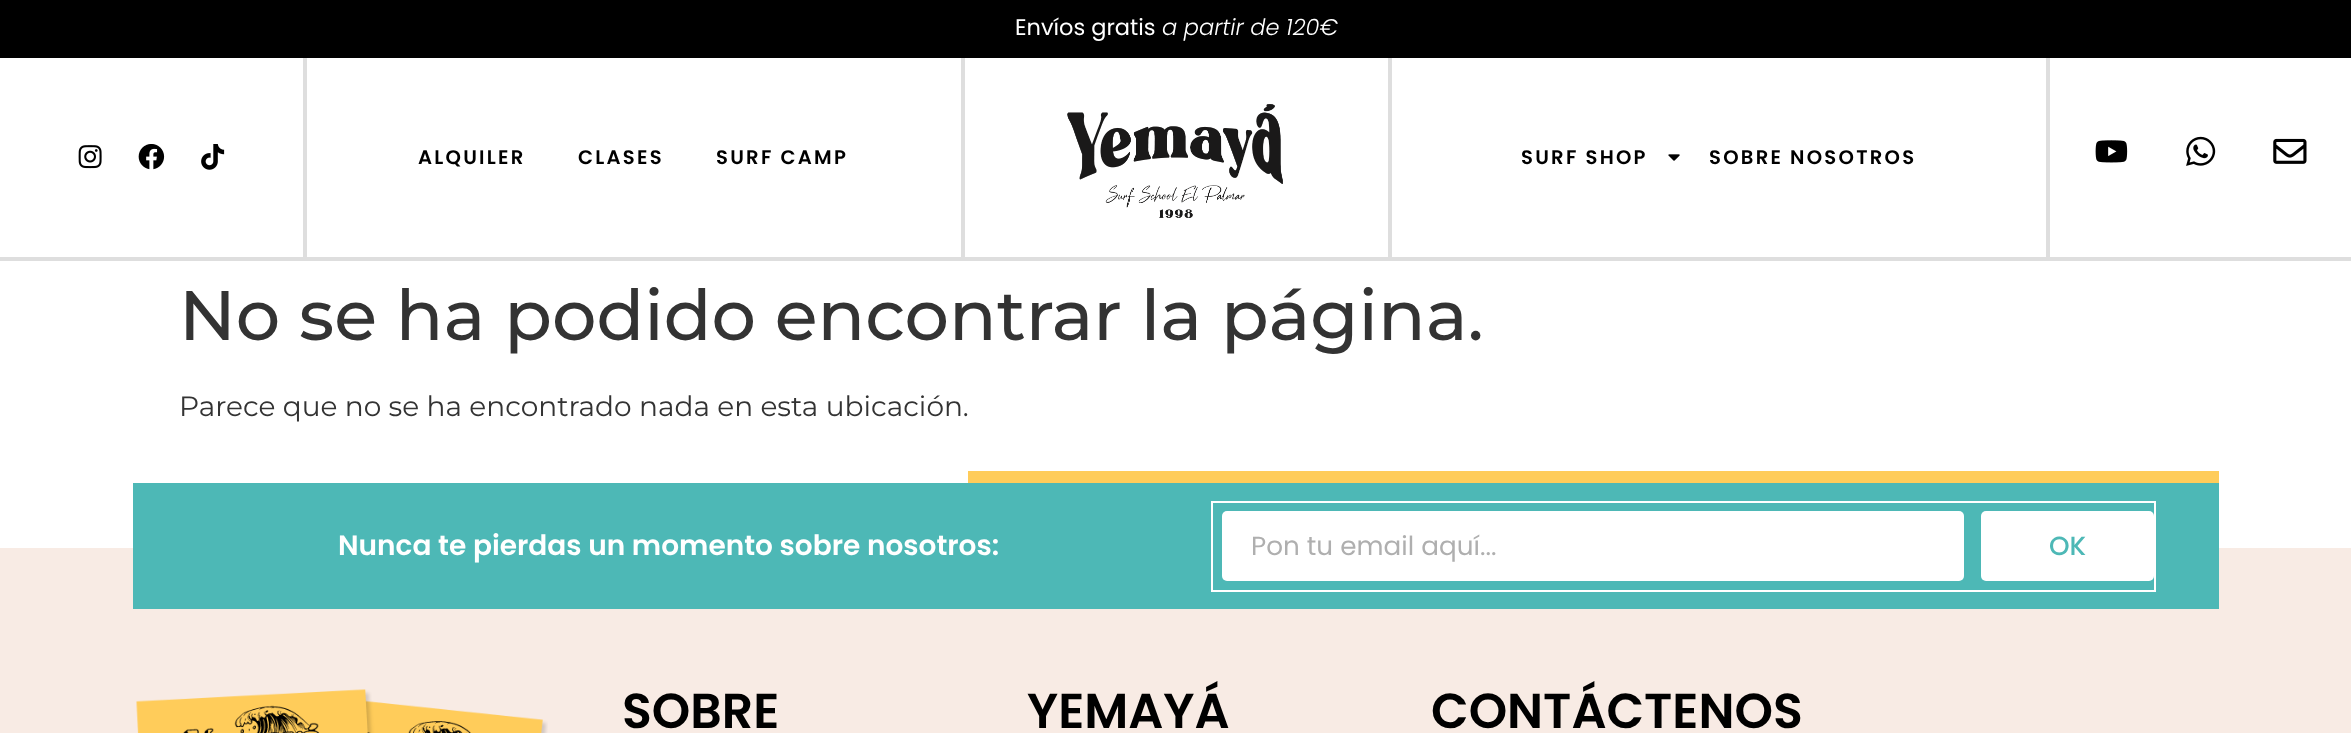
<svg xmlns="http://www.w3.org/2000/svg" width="2351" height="733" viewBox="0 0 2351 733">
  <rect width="100%" height="100%" fill="#fff"/>
  <path d="M0 0h2351v58H0z" fill="#000"/>
  <path d="M0 257h2351v4H0z" fill="#dedede"/>
  <path d="M303 58h4v199H303z" fill="#dedede"/>
  <image x="78" y="145" width="24" height="24" href="img/1.png"/>
  <image x="138" y="144" width="27" height="26" href="img/2.png"/>
  <image x="201" y="144" width="24" height="26" href="img/3.png"/>
  <path d="M961 58h4v199H961z" fill="#dedede"/>
  <image x="1067" y="104" width="216" height="114" href="img/4.png"/>
  <path d="M1388 58h4v199H1388z" fill="#dedede"/>
  <image x="1668" y="154" width="12" height="7" href="img/5.png"/>
  <path d="M2046 58h4v199H2046z" fill="#dedede"/>
  <image x="2095" y="140" width="33" height="23" href="img/6.png"/>
  <image x="2186" y="136" width="30" height="30" href="img/7.png"/>
  <image x="2273" y="138" width="34" height="26" href="img/8.png"/>
  <path d="M968 471h1251v12H968z" fill="#ffcc5a"/>
  <path d="M0 548h2351v185H0z" fill="#f8ebe4"/>
  <path d="M133 483h2086v126H133z" fill="#4db8b6"/>
  <path d="M1212 502h943v89H1212z" fill="none" stroke="#fff" stroke-width="2"/>
  <rect x="1222" y="511" width="742" height="70" rx="5" fill="#fff"/>
  <rect x="1981" y="511" width="173" height="70" rx="5" fill="#fff"/>
  <image x="136" y="689" width="412" height="44" href="img/9.png"/>
  <text x="1015" y="35" font-family="Poppins" font-size="22.5" fill="#fff">Envíos gratis</text>
  <text x="1162" y="35" font-family="Poppins" font-size="22.5" font-weight="300" font-style="italic" fill="#fff">a partir de 120€</text>
  <g font-family="Poppins" font-size="19.6" font-weight="600" letter-spacing="2.25" fill="#000">
    <text x="418" y="164">ALQUILER</text>
    <text x="578" y="164">CLASES</text>
    <text x="716" y="164">SURF CAMP</text>
    <text x="1521" y="164">SURF SHOP</text>
    <text x="1709" y="164">SOBRE NOSOTROS</text>
  </g>
  <text x="179" y="340" font-family="Montserrat" font-size="70" font-weight="500" fill="#333">No se ha podido encontrar la página.</text>
  <text x="179" y="416" font-family="Montserrat" font-size="28" fill="#333">Parece que no se ha encontrado nada en esta ubicación.</text>
  <text x="338" y="555" font-family="Poppins" font-size="28" font-weight="600" fill="#fff">Nunca te pierdas un momento sobre nosotros:</text>
  <text x="1251" y="555" font-family="Poppins" font-size="26.25" fill="#afafaf">Pon tu email aquí...</text>
  <text x="2049" y="555" font-family="Poppins" font-size="26.25" font-weight="500" fill="#4db8b6">OK</text>
  <g font-family="Poppins" font-size="49" font-weight="600" fill="#000">
    <text x="622" y="728">SOBRE</text>
    <text x="1027" y="728">YEMAYÁ</text>
    <text x="1431" y="728">CONTÁCTENOS</text>
  </g>
</svg>
